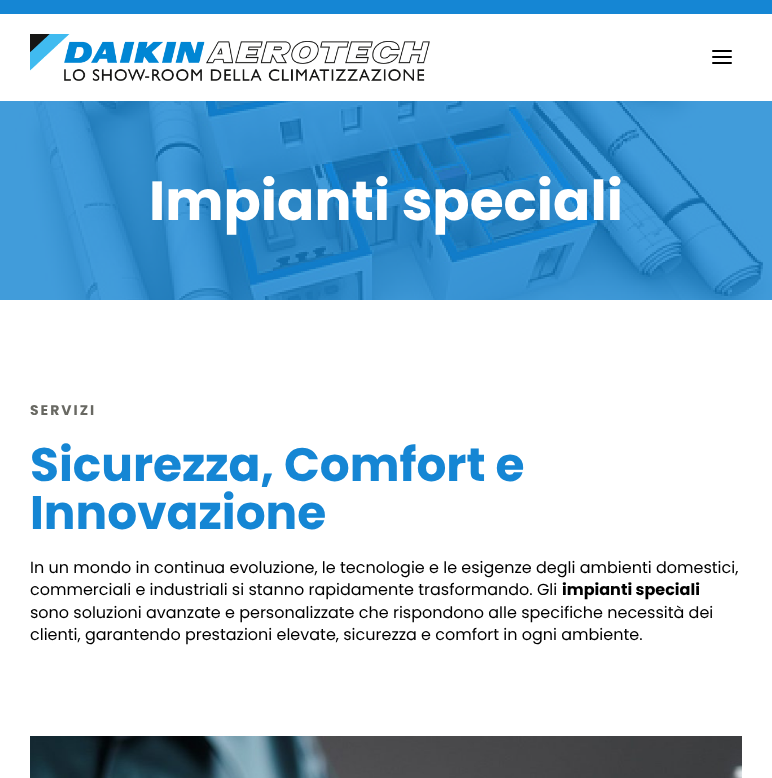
<svg xmlns="http://www.w3.org/2000/svg" width="772" height="778" viewBox="0 0 772 778">
  <rect width="100%" height="100%" fill="#fff"/>
  <path d="M0 0h772v14H0z" fill="#1586d4"/>
  <image x="30" y="34" width="400" height="47" href="img/1.png"/>
  <rect x="712" y="50" width="20" height="2" rx="1" fill="#000"/>
  <rect x="712" y="56" width="20" height="2" rx="1" fill="#000"/>
  <rect x="712" y="62" width="20" height="2" rx="1" fill="#000"/>
  <image x="0" y="101" width="772" height="199" href="img/2.png"/>
  <image x="30" y="736" width="712" height="42" href="img/3.png"/>
  <text x="149" y="220" font-family="Poppins" font-size="55" font-weight="bold" fill="#fff">Impianti speciali</text>
  <text x="30" y="415" font-family="Poppins" font-size="14" font-weight="bold" letter-spacing="2" fill="#696963">SERVIZI</text>
  <g font-family="Poppins" font-size="47" font-weight="bold" fill="#1586d4">
    <text x="30" y="481">Sicurezza, Comfort e</text>
    <text x="30" y="529">Innovazione</text>
  </g>
  <g font-family="Poppins" font-size="16" fill="#000">
    <text x="30" y="573">In un mondo in continua evoluzione, le tecnologie e le esigenze degli ambienti domestici,</text>
    <text x="30" y="595">commerciali e industriali si stanno rapidamente trasformando. Gli</text>
  </g>
  <text x="562" y="595" font-family="Poppins" font-size="16" font-weight="bold" fill="#000">impianti speciali</text>
  <g font-family="Poppins" font-size="16" fill="#000">
    <text x="30" y="618">sono soluzioni avanzate e personalizzate che rispondono alle specifiche necessità dei</text>
    <text x="30" y="640">clienti, garantendo prestazioni elevate, sicurezza e comfort in ogni ambiente.</text>
  </g>
</svg>
